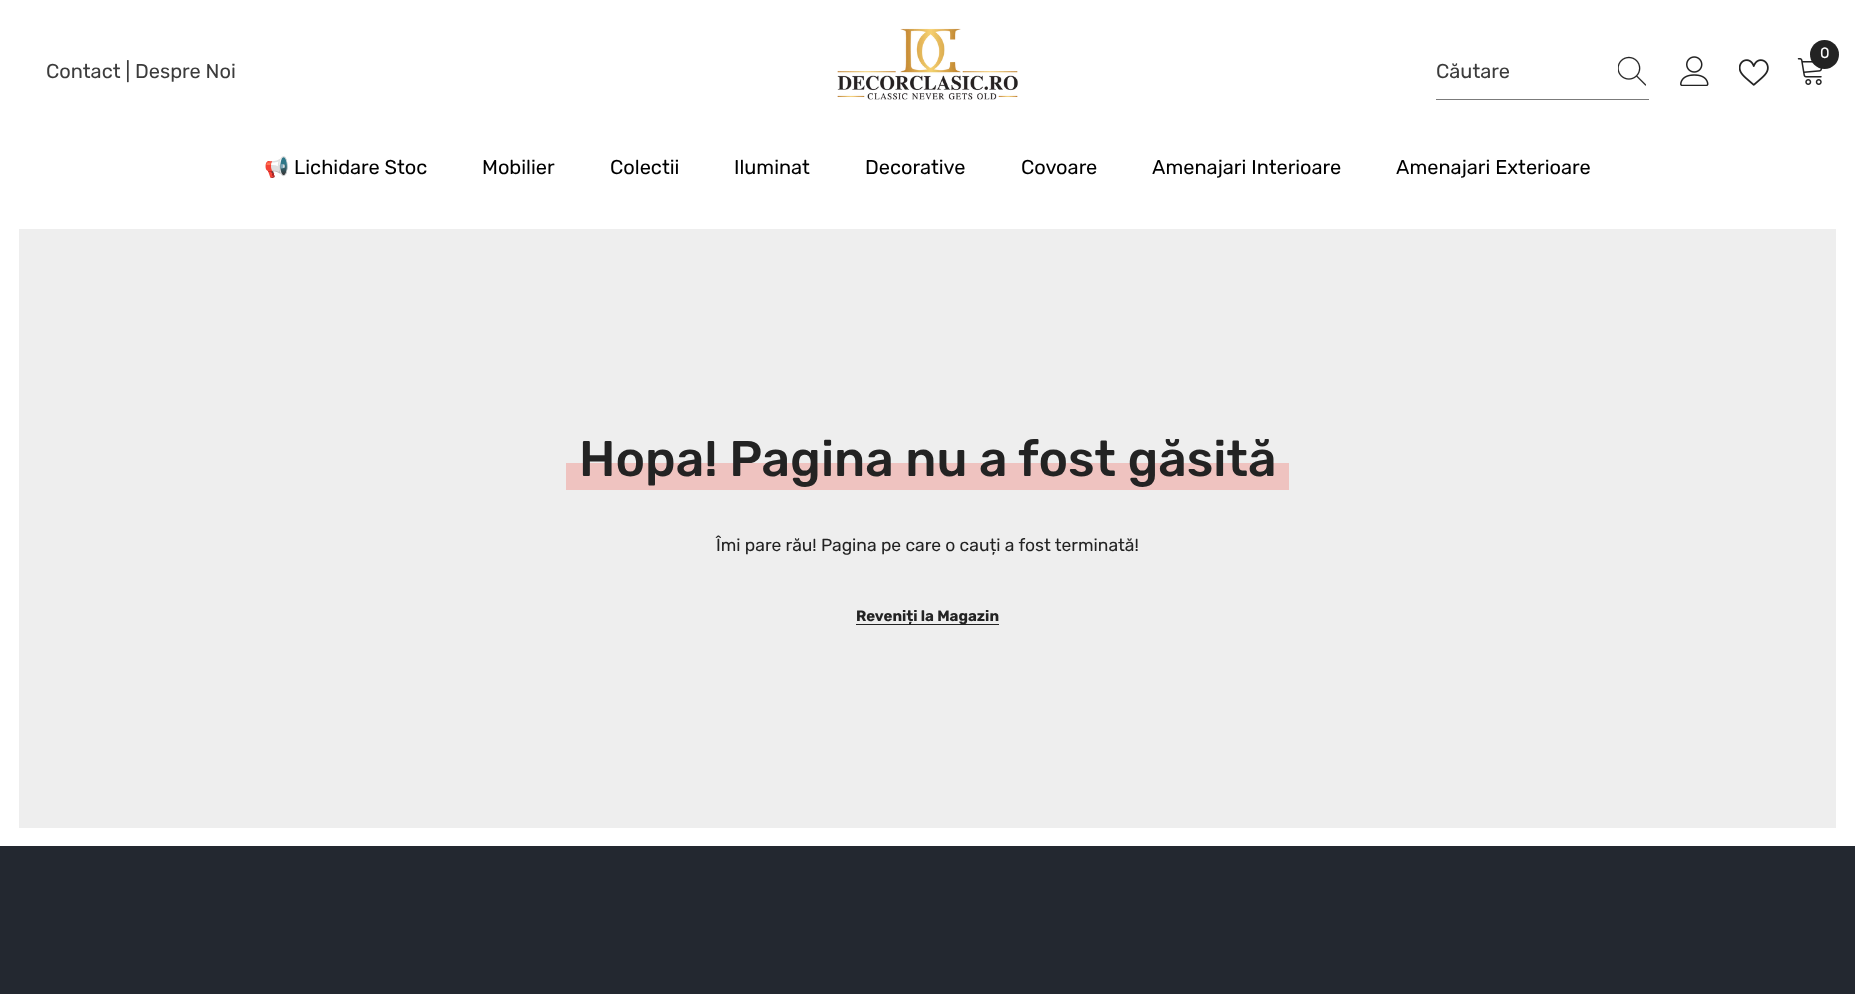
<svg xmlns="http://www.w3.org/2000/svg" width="1855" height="994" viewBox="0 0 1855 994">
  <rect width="100%" height="100%" fill="#fff"/>
  <image x="837" y="28" width="181" height="72" href="img/1.png"/>
  <image x="1797" y="58" width="26" height="27" href="img/2.png"/>
  <circle cx="1824.5" cy="54.5" r="14.5" fill="#232323"/>
  <image x="1680" y="56" width="29" height="30" href="img/3.png"/>
  <image x="1739" y="59" width="30" height="27" href="img/4.png"/>
  <path d="M1436 99h213v1H1436z" fill="#7b7b7b"/>
  <image x="1618" y="56" width="28" height="30" href="img/5.png"/>
  <path d="M19 229h1817v599H19z" fill="#eee"/>
  <path d="M566 463h723v27H566z" fill="#efc3c0"/>
  <path d="M856 624h143v1H856z" fill="#232323"/>
  <path d="M0 846h1855v148H0z" fill="#232830"/>
  <text x="46" y="78" font-family="Rubik" font-size="20" fill="#3c3c3c">Contact | Despre Noi</text>
  <text x="1820" y="58" font-family="Rubik" font-size="15" fill="#fff">0</text>
  <text x="1436" y="78" font-family="Rubik" font-size="20" fill="#3c3c3c">Căutare</text>
  <text x="264" y="174" font-family="Noto Color Emoji" font-size="20" fill="#000">📢</text>
  <g font-family="Rubik" font-size="20" fill="#000">
    <text x="294" y="174">Lichidare Stoc</text>
    <text x="482" y="174">Mobilier</text>
    <text x="610" y="174">Colectii</text>
    <text x="734" y="174">Iluminat</text>
    <text x="865" y="174">Decorative</text>
    <text x="1021" y="174">Covoare</text>
    <text x="1152" y="174">Amenajari Interioare</text>
    <text x="1396" y="174">Amenajari Exterioare</text>
  </g>
  <text x="579" y="476" font-family="Rubik" font-size="50" font-weight="500" fill="#232323">Hopa! Pagina nu a fost găsită</text>
  <text x="716" y="551" font-family="Rubik" font-size="17.5" fill="#232323">Îmi pare rău! Pagina pe care o cauți a fost terminată!</text>
  <text x="856" y="621" font-family="Rubik" font-size="15" font-weight="bold" fill="#232323">Reveniți la Magazin</text>
</svg>
